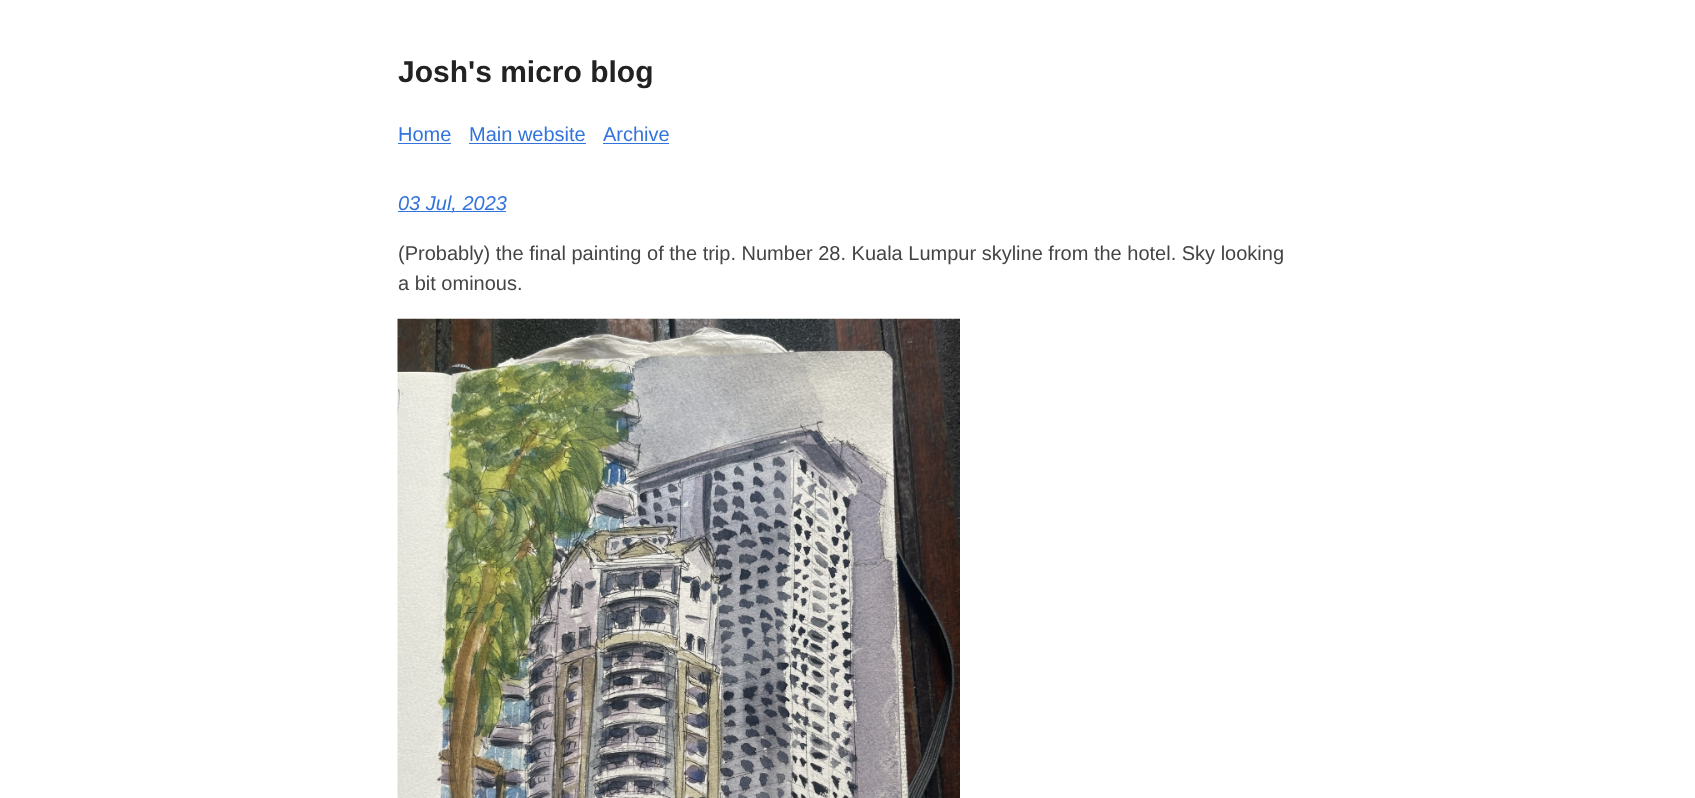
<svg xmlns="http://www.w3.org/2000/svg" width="1695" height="798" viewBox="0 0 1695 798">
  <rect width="100%" height="100%" fill="#fff"/>
  <path d="M398 143h53v1H398z" fill="#3273dc"/>
  <path d="M469 143h117v1H469z" fill="#3273dc"/>
  <path d="M603 143h66v1H603z" fill="#3273dc"/>
  <path d="M398 211h108v1H398z" fill="#3273dc"/>
  <image x="397" y="318" width="563" height="480" href="img/1.png"/>
  <text x="398" y="82" font-family="Liberation Sans" font-size="30" font-weight="bold" fill="#222">Josh's micro blog</text>
  <g font-family="Liberation Sans" font-size="20" fill="#3273dc">
    <text x="398" y="141">Home</text>
    <text x="469" y="141">Main website</text>
    <text x="603" y="141">Archive</text>
  </g>
  <text x="398" y="210" font-family="Liberation Sans" font-size="20" font-style="italic" fill="#3273dc">03 Jul, 2023</text>
  <g font-family="Liberation Sans" font-size="20" fill="#444">
    <text x="398" y="260">(Probably) the final painting of the trip. Number 28. Kuala Lumpur skyline from the hotel. Sky looking</text>
    <text x="398" y="290">a bit ominous.</text>
  </g>
</svg>
